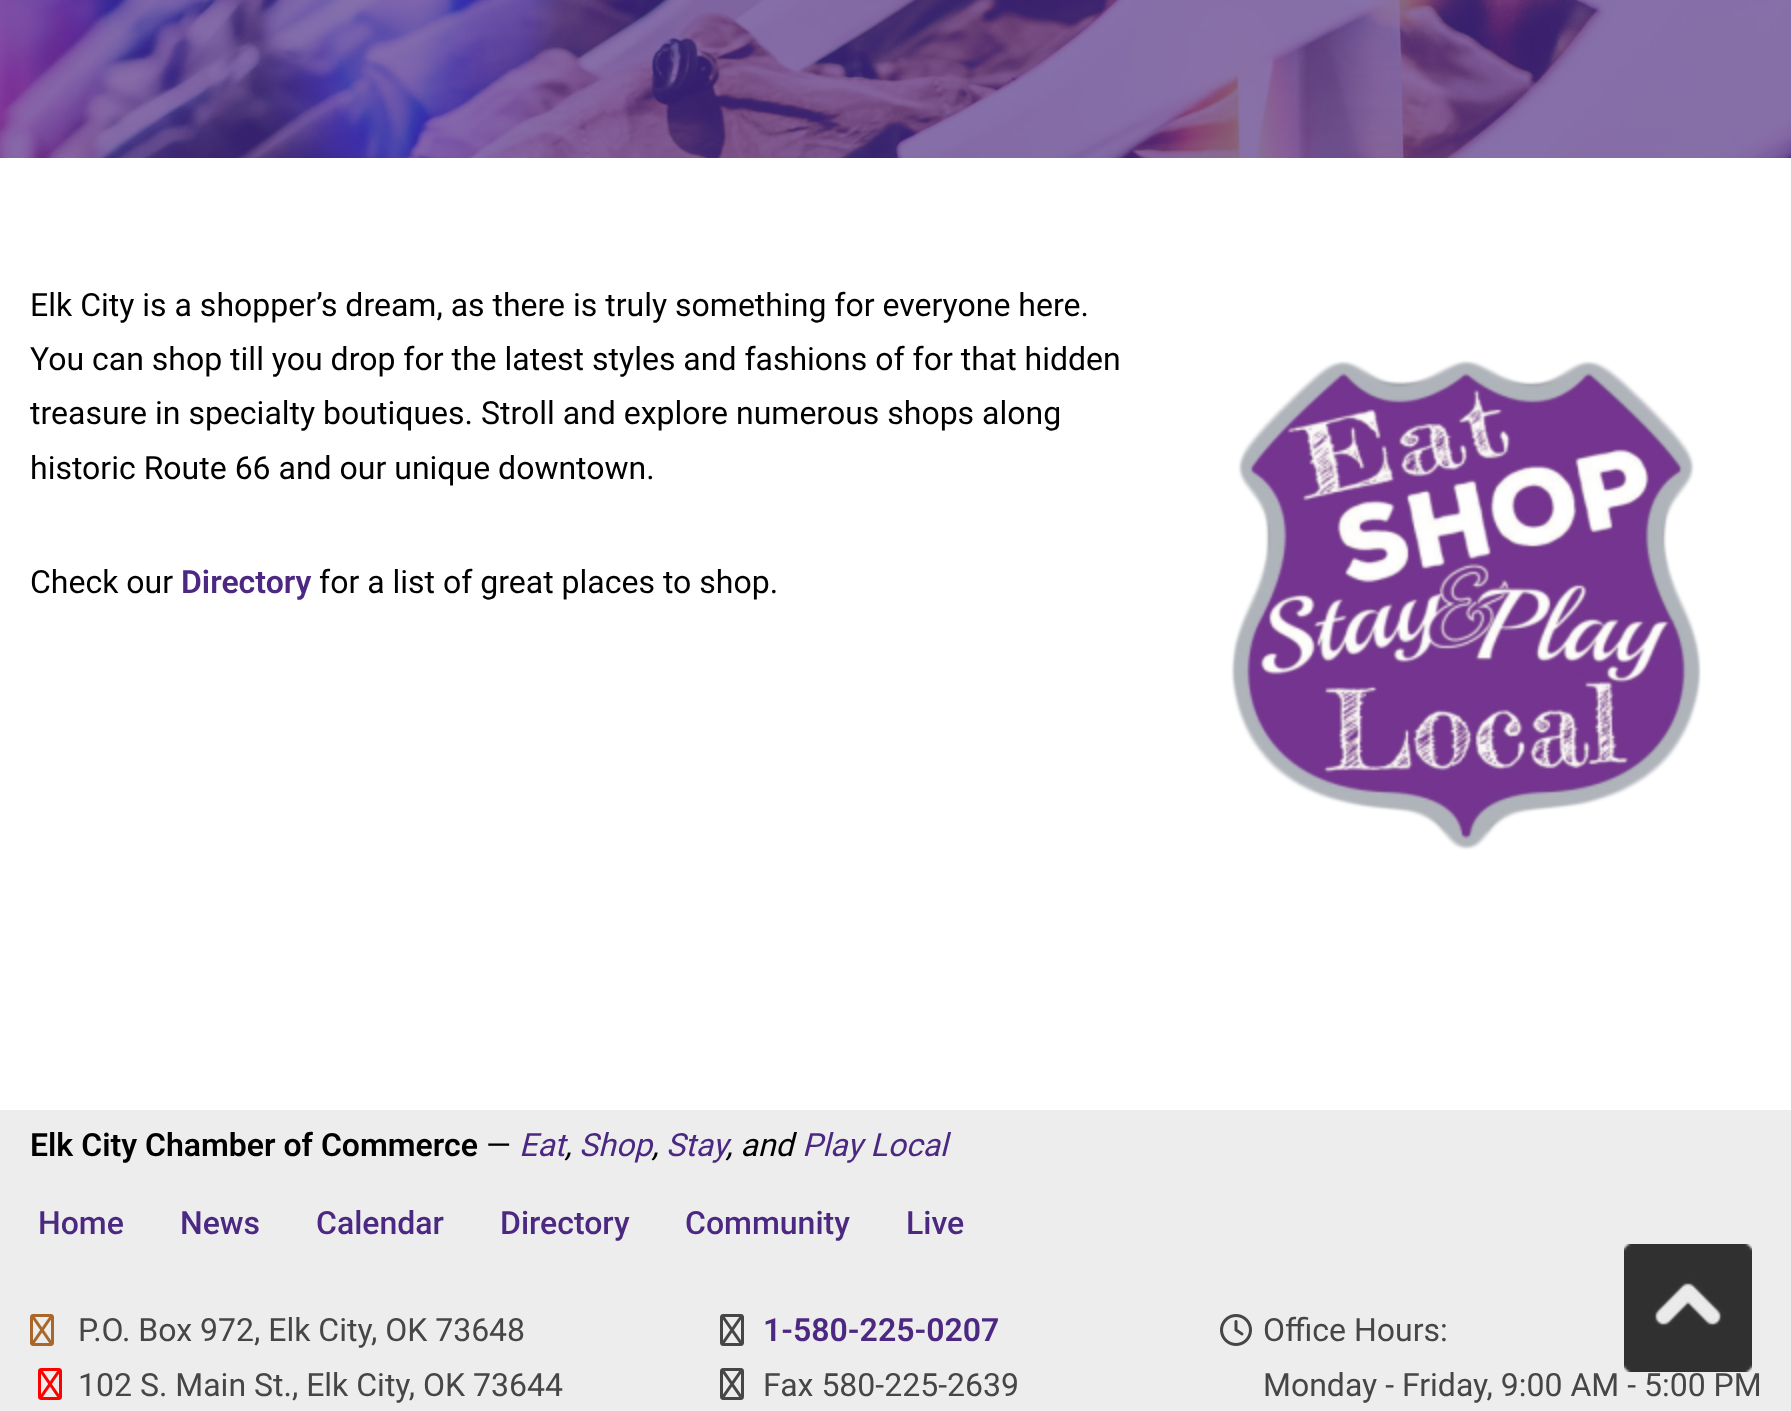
<svg xmlns="http://www.w3.org/2000/svg" width="1791" height="1411" viewBox="0 0 1791 1411">
  <rect width="100%" height="100%" fill="#fff"/>
  <image x="0" y="0" width="1791" height="158" href="img/1.png"/>
  <image x="1231" y="360" width="470" height="490" href="img/2.png"/>
  <path d="M0 1110h1791v301H0z" fill="#ededed"/>
  <image x="30" y="1314" width="24" height="32" href="img/3.png"/>
  <image x="38" y="1368" width="24" height="32" href="img/4.png"/>
  <image x="720" y="1314" width="24" height="32" href="img/5.png"/>
  <image x="720" y="1368" width="24" height="32" href="img/5.png"/>
  <image x="1220" y="1314" width="32" height="32" href="img/6.png"/>
  <image x="1624" y="1244" width="128" height="128" href="img/7.png"/>
  <g font-family="Roboto" font-size="32" fill="#000">
    <text x="30" y="316">Elk City is a shopper’s dream, as there is truly something for everyone here.</text>
    <text x="30" y="370">You can shop till you drop for the latest styles and fashions of for that hidden</text>
    <text x="30" y="424">treasure in specialty boutiques. Stroll and explore numerous shops along</text>
    <text x="30" y="479">historic Route 66 and our unique downtown.</text>
    <text x="30" y="593">Check our</text>
  </g>
  <text x="181" y="593" font-family="Roboto" font-size="32" font-weight="600" fill="#4c2882">Directory</text>
  <text x="319" y="593" font-family="Roboto" font-size="32" fill="#000">for a list of great places to shop.</text>
  <text x="30" y="1156" font-family="Roboto" font-size="32" font-weight="600" fill="#000">Elk City Chamber of Commerce</text>
  <text x="486" y="1156" font-family="Roboto" font-size="32" fill="#000">—</text>
  <g font-family="Roboto" font-size="32" font-style="italic" fill="#4c2882">
    <text x="519" y="1156">Eat</text>
    <text x="579" y="1156">Shop</text>
    <text x="666" y="1156">Stay</text>
  </g>
  <text x="726" y="1156" font-family="Roboto" font-size="32" font-style="italic" fill="#000">, and</text>
  <text x="802" y="1156" font-family="Roboto" font-size="32" font-style="italic" fill="#4c2882">Play Local</text>
  <g font-family="Roboto" font-size="32" font-style="italic" fill="#000">
    <text x="565" y="1156">,</text>
    <text x="652" y="1156">,</text>
  </g>
  <g font-family="Roboto" font-size="32" font-weight="500" fill="#4c2882">
    <text x="38" y="1234">Home</text>
    <text x="180" y="1234">News</text>
    <text x="316" y="1234">Calendar</text>
    <text x="500" y="1234">Directory</text>
    <text x="685" y="1234">Community</text>
    <text x="906" y="1234">Live</text>
  </g>
  <g font-family="Roboto" font-size="32" fill="#464646">
    <text x="78" y="1341">P.O. Box 972, Elk City, OK 73648</text>
    <text x="78" y="1396">102 S. Main St., Elk City, OK 73644</text>
  </g>
  <text x="763" y="1341" font-family="Roboto" font-size="32" font-weight="600" fill="#4c2882">1-580-225-0207</text>
  <g font-family="Roboto" font-size="32" fill="#464646">
    <text x="763" y="1396">Fax 580-225-2639</text>
    <text x="1263" y="1341">Office Hours:</text>
    <text x="1263" y="1396">Monday - Friday, 9:00 AM - 5:00 PM</text>
  </g>
</svg>
